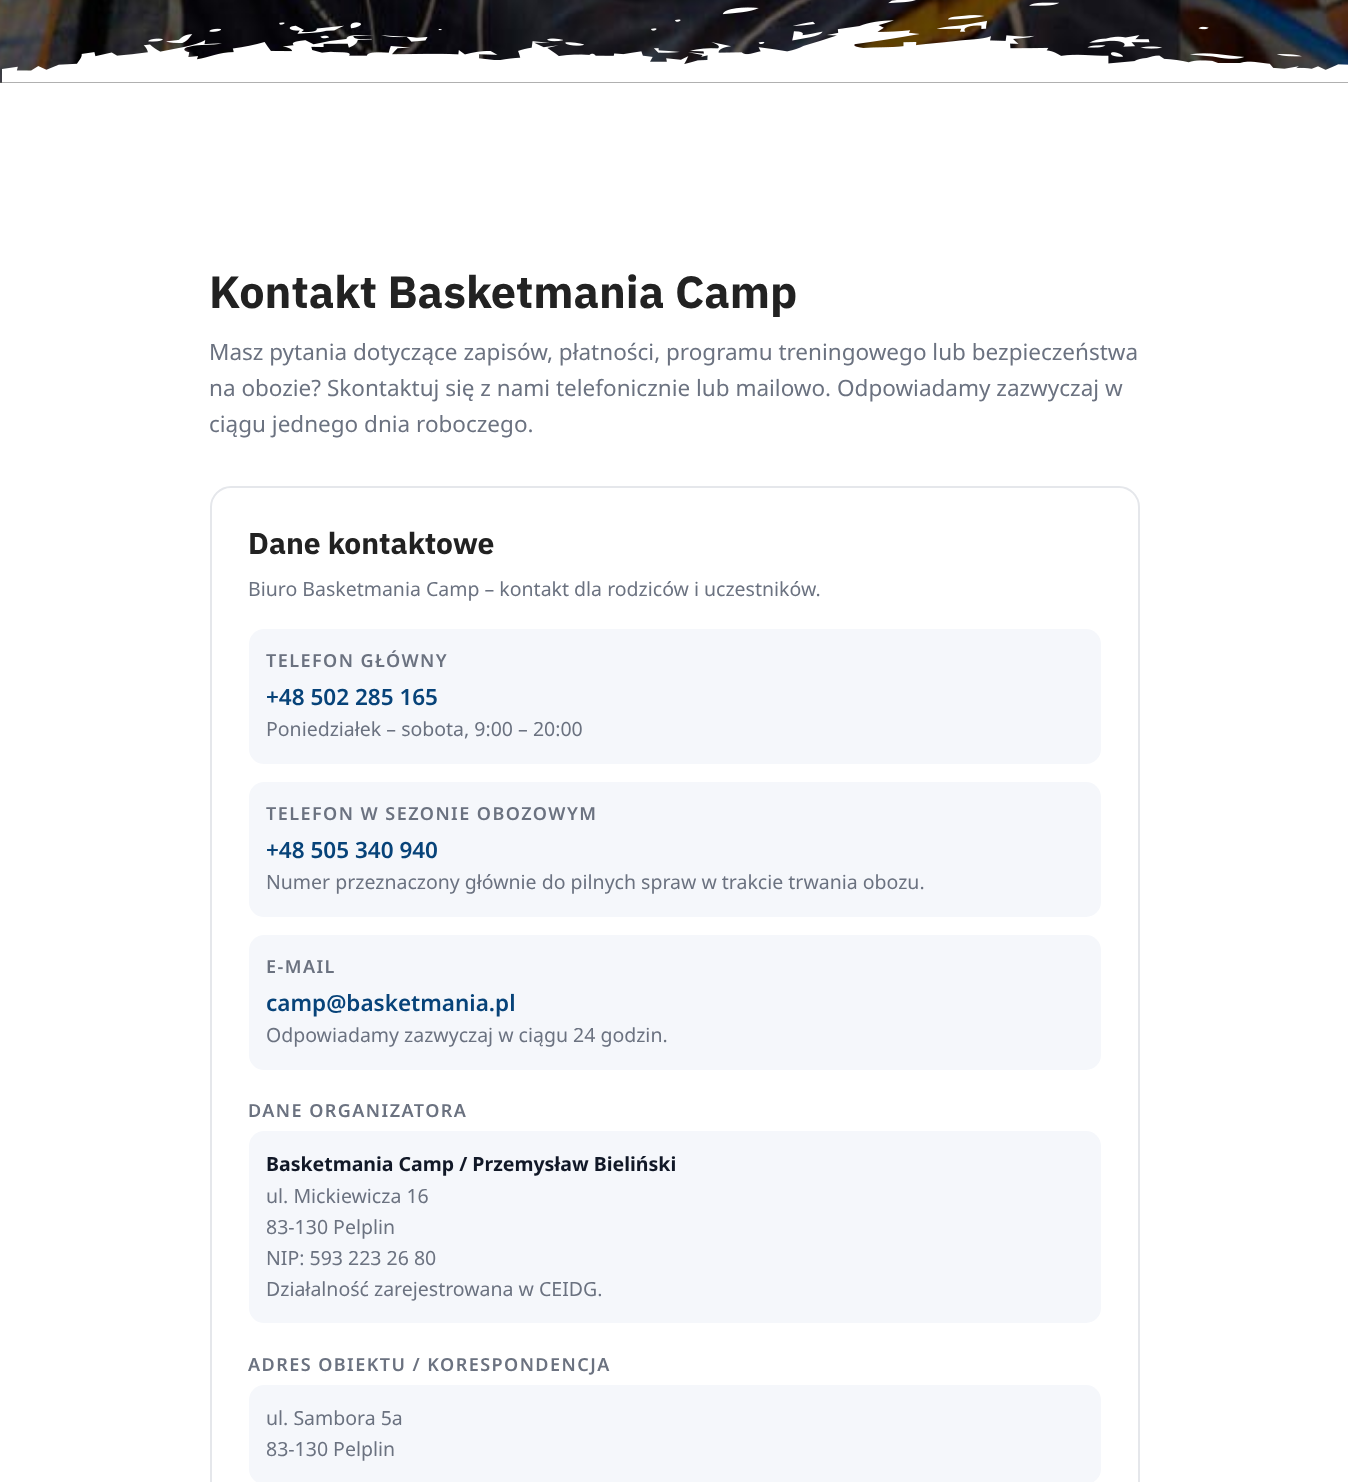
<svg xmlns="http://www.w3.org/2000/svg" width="1348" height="1482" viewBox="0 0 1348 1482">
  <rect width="100%" height="100%" fill="#fff"/>
  <path d="M0 82h1348v1H0z" fill="#575757"/>
  <image x="0" y="0" width="1348" height="82" href="img/1.png"/>
  <image x="2" y="0" width="1346" height="83" href="img/2.png"/>
  <rect x="211" y="487" width="928" height="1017" rx="20" fill="none" stroke="#e5e7eb" stroke-width="2"/>
  <rect x="249" y="629" width="852" height="135" rx="15" fill="#f5f7fb"/>
  <rect x="249" y="782" width="852" height="135" rx="15" fill="#f5f7fb"/>
  <rect x="249" y="935" width="852" height="135" rx="15" fill="#f5f7fb"/>
  <rect x="249" y="1131" width="852" height="192" rx="15" fill="#f5f7fb"/>
  <rect x="249" y="1385" width="852" height="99" rx="15" fill="#f5f7fb"/>
  <text x="209" y="308" font-family="IBM Plex Sans" font-size="45" font-weight="bold" fill="#222">Kontakt Basketmania Camp</text>
  <g font-family="Noto Sans" font-size="22.5" fill="#6b7280">
    <text x="209" y="360">Masz pytania dotyczące zapisów, płatności, programu treningowego lub bezpieczeństwa</text>
    <text x="209" y="396">na obozie? Skontaktuj się z nami telefonicznie lub mailowo. Odpowiadamy zazwyczaj w</text>
    <text x="209" y="432">ciągu jednego dnia roboczego.</text>
  </g>
  <text x="248" y="554" font-family="IBM Plex Sans" font-size="30" font-weight="bold" fill="#222">Dane kontaktowe</text>
  <text x="248" y="596" font-family="Noto Sans" font-size="19.5" fill="#6b7280">Biuro Basketmania Camp – kontakt dla rodziców i uczestników.</text>
  <text x="266" y="667" font-family="Noto Sans" font-size="18" font-weight="600" letter-spacing="1.45" fill="#6b7280">TELEFON GŁÓWNY</text>
  <text x="266" y="705" font-family="Noto Sans" font-size="22.5" font-weight="600" fill="#074379">+48 502 285 165</text>
  <text x="266" y="736" font-family="Noto Sans" font-size="19.5" fill="#6b7280">Poniedziałek – sobota, 9:00 – 20:00</text>
  <text x="266" y="820" font-family="Noto Sans" font-size="18" font-weight="600" letter-spacing="1.45" fill="#6b7280">TELEFON W SEZONIE OBOZOWYM</text>
  <text x="266" y="858" font-family="Noto Sans" font-size="22.5" font-weight="600" fill="#074379">+48 505 340 940</text>
  <text x="266" y="889" font-family="Noto Sans" font-size="19.5" fill="#6b7280">Numer przeznaczony głównie do pilnych spraw w trakcie trwania obozu.</text>
  <text x="266" y="973" font-family="Noto Sans" font-size="18" font-weight="600" letter-spacing="1.45" fill="#6b7280">E-MAIL</text>
  <text x="266" y="1011" font-family="Noto Sans" font-size="22.5" font-weight="600" fill="#074379">camp@basketmania.pl</text>
  <text x="266" y="1042" font-family="Noto Sans" font-size="19.5" fill="#6b7280">Odpowiadamy zazwyczaj w ciągu 24 godzin.</text>
  <text x="248" y="1117" font-family="Noto Sans" font-size="18" font-weight="600" letter-spacing="1.45" fill="#6b7280">DANE ORGANIZATORA</text>
  <text x="266" y="1171" font-family="Noto Sans" font-size="19.5" font-weight="bold" fill="#111827">Basketmania Camp / Przemysław Bieliński</text>
  <g font-family="Noto Sans" font-size="19.5" fill="#6b7280">
    <text x="266" y="1203">ul. Mickiewicza 16</text>
    <text x="266" y="1234">83-130 Pelplin</text>
    <text x="266" y="1265">NIP: 593 223 26 80</text>
    <text x="266" y="1296">Działalność zarejestrowana w CEIDG.</text>
  </g>
  <text x="248" y="1371" font-family="Noto Sans" font-size="18" font-weight="600" letter-spacing="1.45" fill="#6b7280">ADRES OBIEKTU / KORESPONDENCJA</text>
  <g font-family="Noto Sans" font-size="19.5" fill="#6b7280">
    <text x="266" y="1425">ul. Sambora 5a</text>
    <text x="266" y="1456">83-130 Pelplin</text>
  </g>
</svg>
